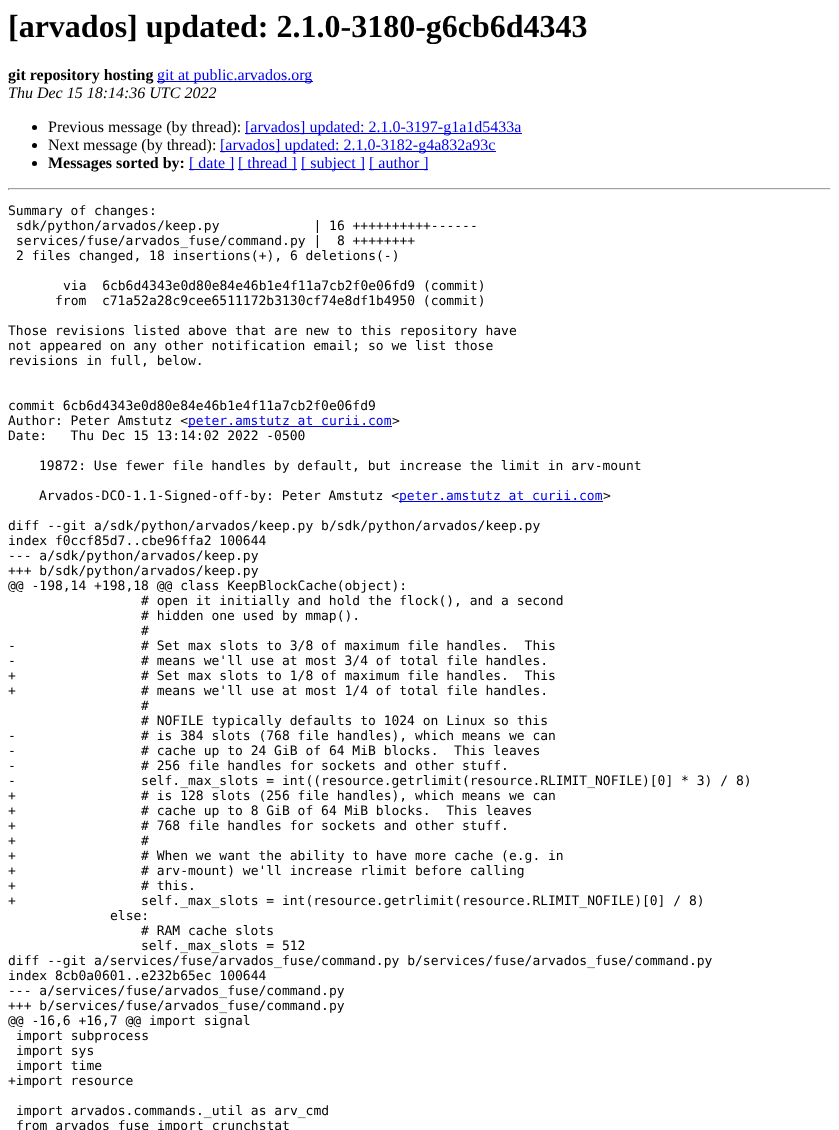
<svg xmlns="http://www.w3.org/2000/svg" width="839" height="1130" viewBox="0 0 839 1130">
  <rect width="100%" height="100%" fill="#fff"/>
  <path d="M157 81h156v1H157z" fill="#00e"/>
  <circle cx="34.5" cy="127.5" r="2.5" fill="#000"/>
  <path d="M245 133h277v1H245z" fill="#00e"/>
  <circle cx="34.5" cy="145.5" r="2.5" fill="#000"/>
  <path d="M220 151h276v1H220z" fill="#00e"/>
  <circle cx="34.5" cy="163.5" r="2.5" fill="#000"/>
  <path d="M189 169h45v1H189z" fill="#00e"/>
  <path d="M238 169h59v1H238z" fill="#00e"/>
  <path d="M301 169h64v1H301z" fill="#00e"/>
  <path d="M369 169h59v1H369z" fill="#00e"/>
  <path d="M8 188h823v1H8z" fill="#9f9f9f"/>
  <path d="M830 188h1v2H830z" fill="#eee"/>
  <path d="M8 189h823v1H8z" fill="#eee"/>
  <path d="M8 188h1v2H8z" fill="#9f9f9f"/>
  <path d="M188 426h204v1H188z" fill="#00e"/>
  <path d="M399 501h204v1H399z" fill="#00e"/>
  <text x="8" y="37" font-family="Liberation Serif" font-size="32" font-weight="bold" fill="#000">[arvados] updated: 2.1.0-3180-g6cb6d4343</text>
  <text x="8" y="80" font-family="Liberation Serif" font-size="16" font-weight="bold" fill="#000">git repository hosting</text>
  <text x="157" y="80" font-family="Liberation Serif" font-size="16" fill="#00e">git at public.arvados.org</text>
  <text x="8" y="98" font-family="Liberation Serif" font-size="16" font-style="italic" fill="#000">Thu Dec 15 18:14:36 UTC 2022</text>
  <text x="48" y="132" font-family="Liberation Serif" font-size="16" fill="#000">Previous message (by thread):</text>
  <text x="245" y="132" font-family="Liberation Serif" font-size="16" fill="#00e">[arvados] updated: 2.1.0-3197-g1a1d5433a</text>
  <text x="48" y="150" font-family="Liberation Serif" font-size="16" fill="#000">Next message (by thread):</text>
  <text x="220" y="150" font-family="Liberation Serif" font-size="16" fill="#00e">[arvados] updated: 2.1.0-3182-g4a832a93c</text>
  <text x="48" y="168" font-family="Liberation Serif" font-size="16" font-weight="bold" fill="#000">Messages sorted by:</text>
  <g font-family="Liberation Serif" font-size="16" fill="#00e">
    <text x="189" y="168">[ date ]</text>
    <text x="238" y="168">[ thread ]</text>
    <text x="301" y="168">[ subject ]</text>
    <text x="369" y="168">[ author ]</text>
  </g>
  <g font-family="DejaVu Sans Mono" font-size="13" fill="#000">
    <text x="8" y="215">Summary of changes:</text>
    <text x="16" y="230" xml:space="preserve">sdk/python/arvados/keep.py            | 16 ++++++++++------</text>
    <text x="16" y="245" xml:space="preserve">services/fuse/arvados_fuse/command.py |  8 ++++++++</text>
    <text x="16" y="260">2 files changed, 18 insertions(+), 6 deletions(-)</text>
    <text x="63" y="290" xml:space="preserve">via  6cb6d4343e0d80e84e46b1e4f11a7cb2f0e06fd9 (commit)</text>
    <text x="55" y="305" xml:space="preserve">from  c71a52a28c9cee6511172b3130cf74e8df1b4950 (commit)</text>
    <text x="8" y="335">Those revisions listed above that are new to this repository have</text>
    <text x="8" y="350">not appeared on any other notification email; so we list those</text>
    <text x="8" y="365">revisions in full, below.</text>
    <text x="8" y="410">commit 6cb6d4343e0d80e84e46b1e4f11a7cb2f0e06fd9</text>
    <text x="8" y="425">Author: Peter Amstutz &lt;</text>
  </g>
  <text x="188" y="425" font-family="DejaVu Sans Mono" font-size="13" fill="#00e">peter.amstutz at curii.com</text>
  <g font-family="DejaVu Sans Mono" font-size="13" fill="#000">
    <text x="392" y="425">&gt;</text>
    <text x="8" y="440" xml:space="preserve">Date:   Thu Dec 15 13:14:02 2022 -0500</text>
    <text x="39" y="470">19872: Use fewer file handles by default, but increase the limit in arv-mount</text>
    <text x="39" y="500">Arvados-DCO-1.1-Signed-off-by: Peter Amstutz &lt;</text>
  </g>
  <text x="399" y="500" font-family="DejaVu Sans Mono" font-size="13" fill="#00e">peter.amstutz at curii.com</text>
  <g font-family="DejaVu Sans Mono" font-size="13" fill="#000">
    <text x="603" y="500">&gt;</text>
    <text x="8" y="530">diff --git a/sdk/python/arvados/keep.py b/sdk/python/arvados/keep.py</text>
    <text x="8" y="545">index f0ccf85d7..cbe96ffa2 100644</text>
    <text x="8" y="560">--- a/sdk/python/arvados/keep.py</text>
    <text x="8" y="575">+++ b/sdk/python/arvados/keep.py</text>
    <text x="8" y="590">@@ -198,14 +198,18 @@ class KeepBlockCache(object):</text>
    <text x="141" y="605"># open it initially and hold the flock(), and a second</text>
    <text x="141" y="620"># hidden one used by mmap().</text>
    <text x="141" y="635">#</text>
    <text x="8" y="650" xml:space="preserve">-                # Set max slots to 3/8 of maximum file handles.  This</text>
    <text x="8" y="665" xml:space="preserve">-                # means we'll use at most 3/4 of total file handles.</text>
    <text x="8" y="680" xml:space="preserve">+                # Set max slots to 1/8 of maximum file handles.  This</text>
    <text x="8" y="695" xml:space="preserve">+                # means we'll use at most 1/4 of total file handles.</text>
    <text x="141" y="710">#</text>
    <text x="141" y="725"># NOFILE typically defaults to 1024 on Linux so this</text>
    <text x="8" y="740" xml:space="preserve">-                # is 384 slots (768 file handles), which means we can</text>
    <text x="8" y="755" xml:space="preserve">-                # cache up to 24 GiB of 64 MiB blocks.  This leaves</text>
    <text x="8" y="770" xml:space="preserve">-                # 256 file handles for sockets and other stuff.</text>
    <text x="8" y="785" xml:space="preserve">-                self._max_slots = int((resource.getrlimit(resource.RLIMIT_NOFILE)[0] * 3) / 8)</text>
    <text x="8" y="800" xml:space="preserve">+                # is 128 slots (256 file handles), which means we can</text>
    <text x="8" y="815" xml:space="preserve">+                # cache up to 8 GiB of 64 MiB blocks.  This leaves</text>
    <text x="8" y="830" xml:space="preserve">+                # 768 file handles for sockets and other stuff.</text>
    <text x="8" y="845" xml:space="preserve">+                #</text>
    <text x="8" y="860" xml:space="preserve">+                # When we want the ability to have more cache (e.g. in</text>
    <text x="8" y="875" xml:space="preserve">+                # arv-mount) we'll increase rlimit before calling</text>
    <text x="8" y="890" xml:space="preserve">+                # this.</text>
    <text x="8" y="905" xml:space="preserve">+                self._max_slots = int(resource.getrlimit(resource.RLIMIT_NOFILE)[0] / 8)</text>
    <text x="110" y="920">else:</text>
    <text x="141" y="935"># RAM cache slots</text>
    <text x="141" y="950">self._max_slots = 512</text>
    <text x="8" y="965">diff --git a/services/fuse/arvados_fuse/command.py b/services/fuse/arvados_fuse/command.py</text>
    <text x="8" y="980">index 8cb0a0601..e232b65ec 100644</text>
    <text x="8" y="995">--- a/services/fuse/arvados_fuse/command.py</text>
    <text x="8" y="1010">+++ b/services/fuse/arvados_fuse/command.py</text>
    <text x="8" y="1025">@@ -16,6 +16,7 @@ import signal</text>
    <text x="16" y="1040">import subprocess</text>
    <text x="16" y="1055">import sys</text>
    <text x="16" y="1070">import time</text>
    <text x="8" y="1085">+import resource</text>
    <text x="16" y="1115">import arvados.commands._util as arv_cmd</text>
    <text x="16" y="1130">from arvados_fuse import crunchstat</text>
  </g>
</svg>
